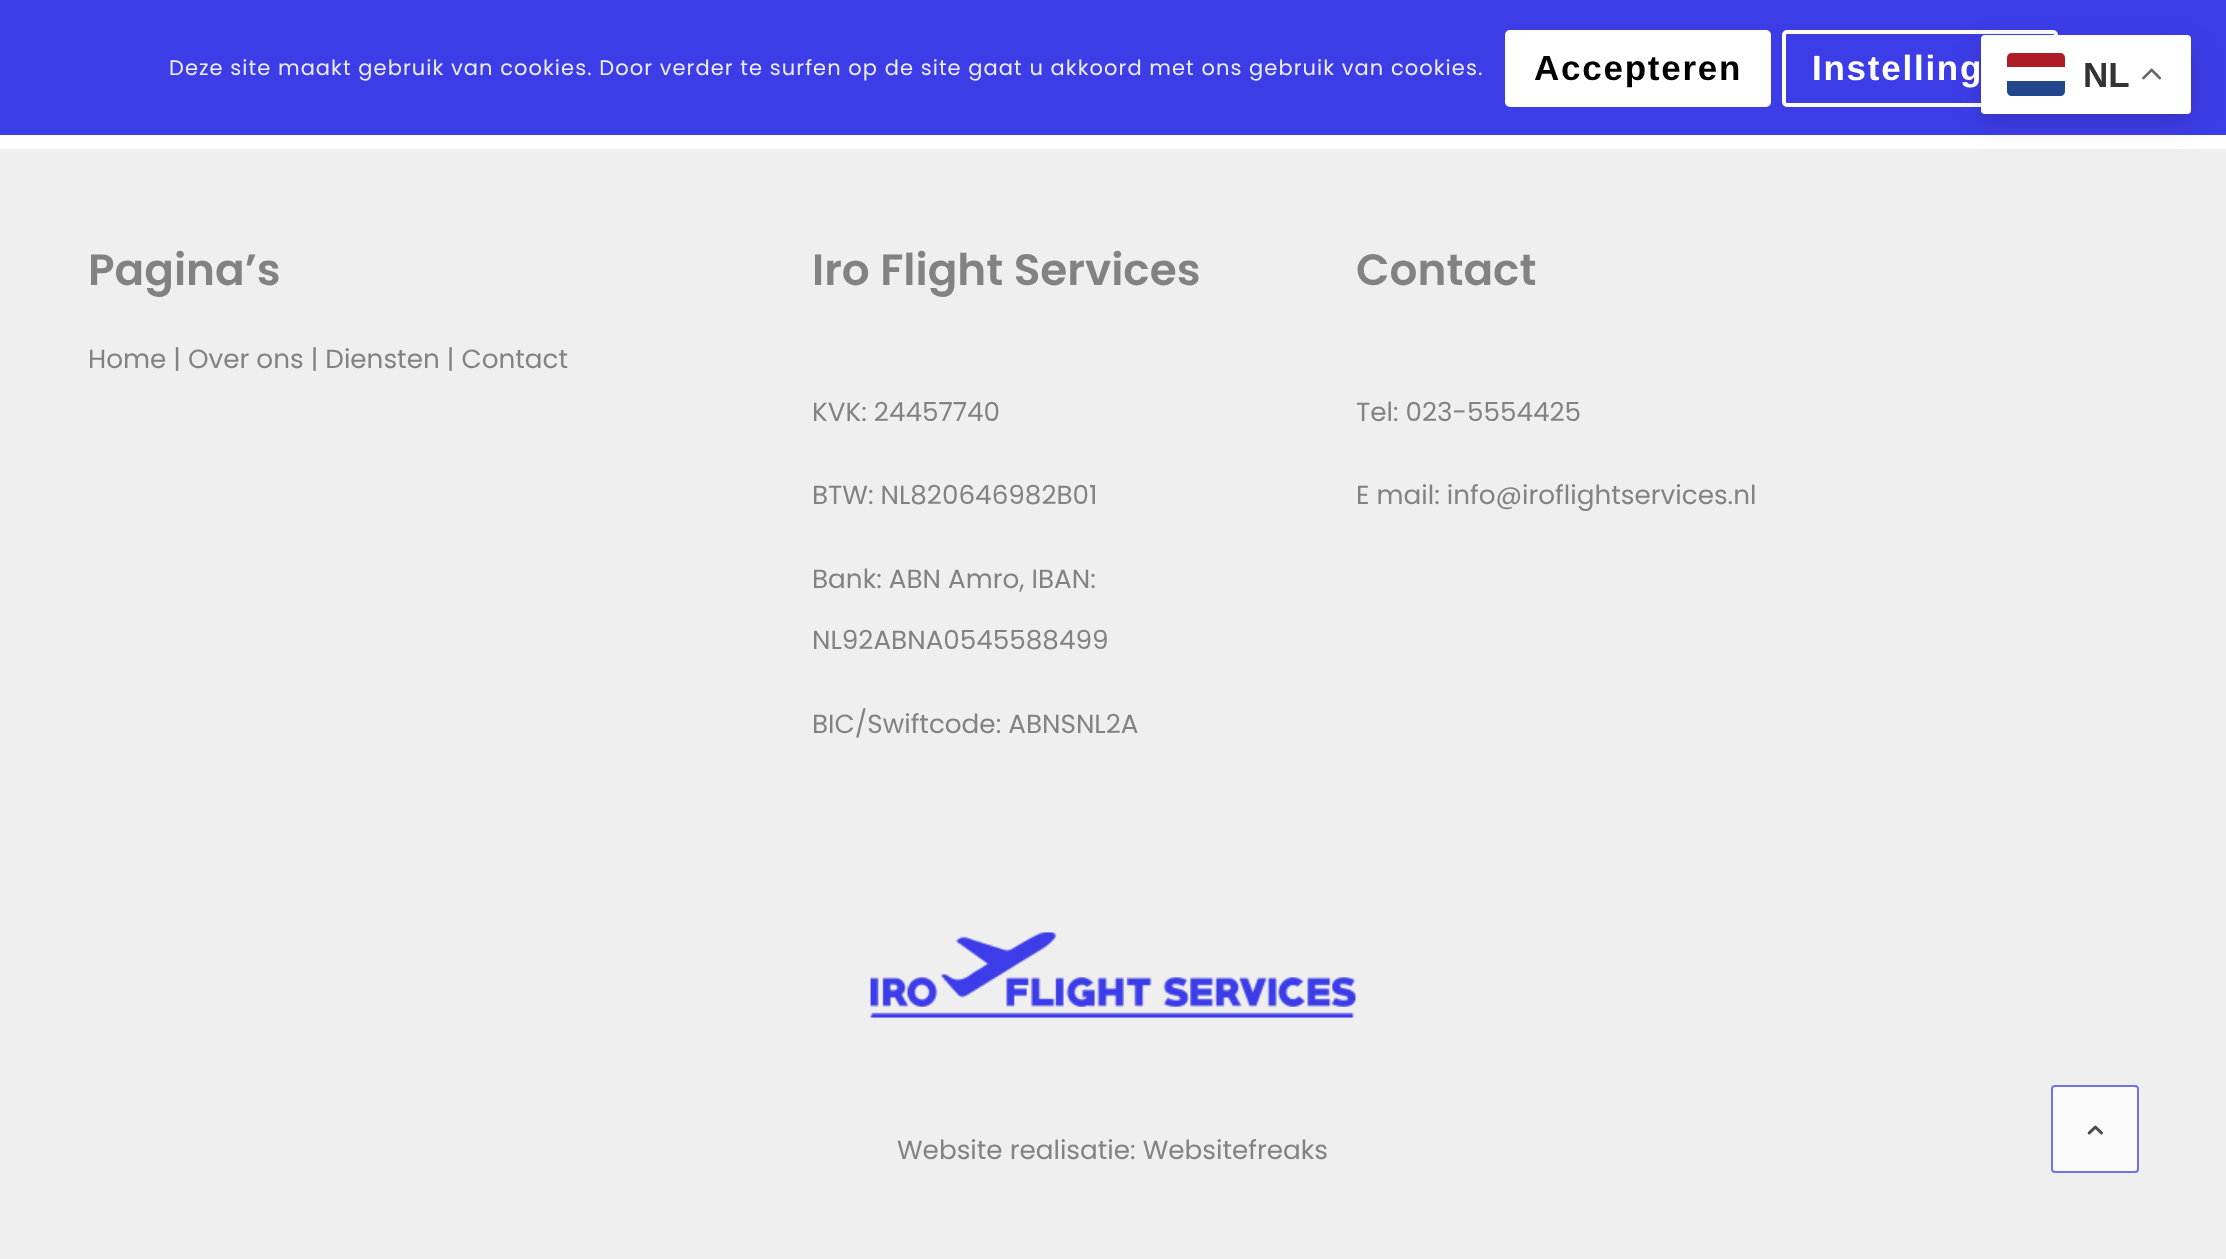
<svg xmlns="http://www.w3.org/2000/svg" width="2226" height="1259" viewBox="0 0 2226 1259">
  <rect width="100%" height="100%" fill="#fff"/>
  <path d="M0 0h2226v135H0z" fill="#3d3de8"/>
  <rect x="1505" y="30" width="266" height="77" rx="5" fill="#fff"/>
  <rect x="1784" y="32" width="272" height="73" rx="3" fill="none" stroke="#fff" stroke-width="4"/>
  <path d="M0 149h2226v1110H0z" fill="#efefef"/>
  <rect x="1981" y="44" width="210" height="79" rx="4" fill="#00000026" filter="blur(13px)"/>
  <rect x="1981" y="35" width="210" height="79" rx="4" fill="#fff"/>
  <path d="M2007 81H2065V91C2065 94 2063 96 2060 96H2012C2009 96 2007 94 2007 91Z" fill="#21468b"/>
  <path d="M2012 53H2060C2063 53 2065 55 2065 58V67H2007V58C2007 55 2009 53 2012 53Z" fill="#ae1c28"/>
  <image x="2142" y="68" width="19" height="12" href="img/1.png"/>
  <image x="870" y="932" width="486" height="86" href="img/2.png"/>
  <rect x="2052" y="1086" width="86" height="86" rx="3" fill="#fafafa" stroke="#7272ea" stroke-width="2"/>
  <image x="2087" y="1125" width="16" height="10" href="img/3.png"/>
  <text x="169" y="75" font-family="Poppins" font-size="21" letter-spacing="1.05" fill="#ececfd">Deze site maakt gebruik van cookies. Door verder te surfen op de site gaat u akkoord met ons gebruik van cookies.</text>
  <text x="1534" y="80" font-family="Arimo" font-size="35" font-weight="bold" letter-spacing="1.75" fill="#000">Accepteren</text>
  <text x="1812" y="80" font-family="Arimo" font-size="35" font-weight="bold" letter-spacing="1.75" fill="#fff">Instelling</text>
  <text x="2083" y="87" font-family="Liberation Sans" font-size="35" font-weight="bold" fill="#333">NL</text>
  <text x="88" y="285" font-family="Poppins" font-size="43.75" font-weight="600" fill="#828282">Pagina’s</text>
  <text x="88" y="368" font-family="Poppins" font-size="26.25" fill="#828282">Home | Over ons | Diensten | Contact</text>
  <text x="812" y="285" font-family="Poppins" font-size="43.75" font-weight="600" fill="#828282">Iro Flight Services</text>
  <g font-family="Poppins" font-size="26.25" fill="#828282">
    <text x="812" y="421">KVK: 24457740</text>
    <text x="812" y="504">BTW: NL820646982B01</text>
    <text x="812" y="588">Bank: ABN Amro, IBAN:</text>
    <text x="812" y="649">NL92ABNA0545588499</text>
    <text x="812" y="733">BIC/Swiftcode: ABNSNL2A</text>
  </g>
  <text x="1356" y="285" font-family="Poppins" font-size="43.75" font-weight="600" fill="#828282">Contact</text>
  <g font-family="Poppins" font-size="26.25" fill="#828282">
    <text x="1356" y="421">Tel: 023-5554425</text>
    <text x="1356" y="504">E mail: info@iroflightservices.nl</text>
    <text x="897" y="1159">Website realisatie: Websitefreaks</text>
  </g>
</svg>
